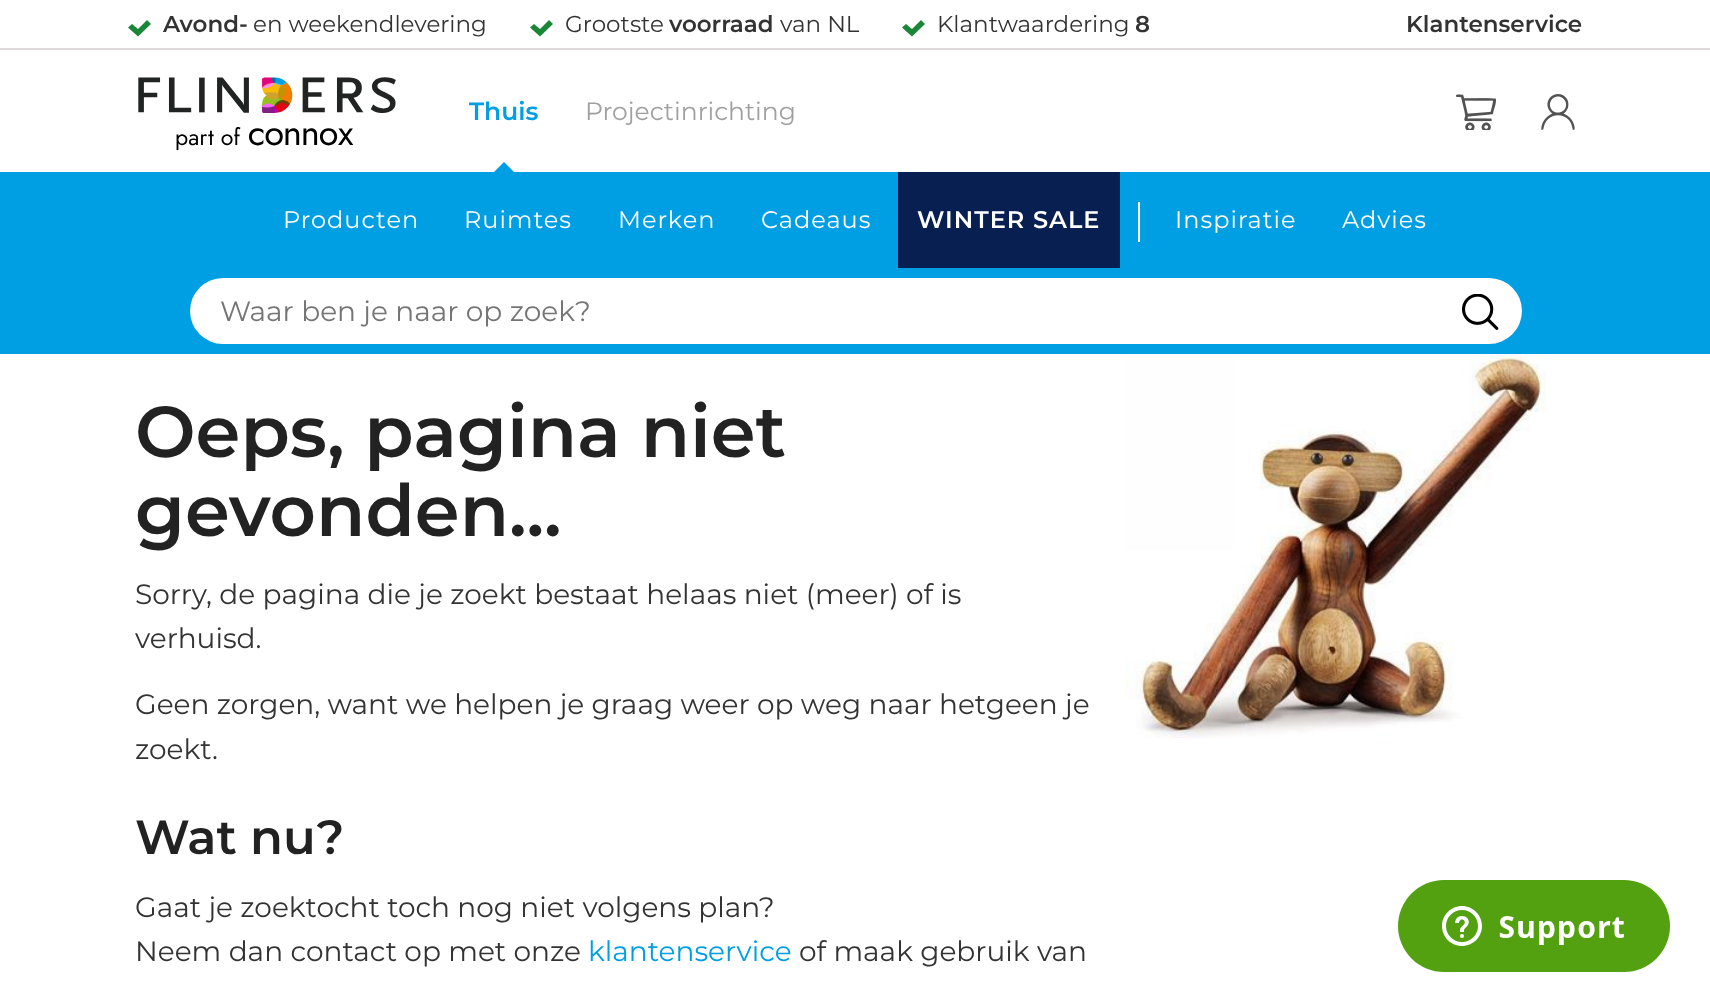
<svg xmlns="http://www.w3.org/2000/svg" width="1710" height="1000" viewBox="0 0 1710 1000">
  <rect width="100%" height="100%" fill="#fff"/>
  <path d="M0 48h1710v2H0z" fill="#dedada"/>
  <path d="M138 36.5L128 27.5L132 24L138 29L147 20L151 24Z" fill="#198737"/>
  <path d="M540 36.5L530 27.5L534 24L540 29L549 20L553 24Z" fill="#198737"/>
  <path d="M912 36.5L902 27.5L906 24L912 29L921 20L925 24Z" fill="#198737"/>
  <image x="138" y="77" width="258" height="73" href="img/1.png"/>
  <path d="M0 172h1710v182H0z" fill="#009ee2"/>
  <path d="M520 178H488L504 162Z" fill="#009ee2"/>
  <image x="1456" y="94" width="40" height="36" href="img/2.png"/>
  <image x="1541" y="94" width="34" height="36" href="img/3.png"/>
  <path d="M898 172h222v96H898z" fill="#081f51"/>
  <path d="M1138 202h2v40H1138z" fill="#fff"/>
  <rect x="190" y="278" width="1332" height="66" rx="33" fill="#fff"/>
  <image x="1462" y="294" width="37" height="36" href="img/4.png"/>
  <image x="1126" y="354" width="420" height="384" href="img/5.png"/>
  <image x="1398" y="880" width="272" height="92" href="img/6.png"/>
  <text x="163" y="32" font-family="Montserrat" font-size="23" font-weight="600" fill="#333">Avond-</text>
  <g font-family="Montserrat" font-size="23" fill="#333">
    <text x="253" y="32">en weekendlevering</text>
    <text x="565" y="32">Grootste</text>
  </g>
  <text x="669" y="32" font-family="Montserrat" font-size="23" font-weight="600" fill="#333">voorraad</text>
  <g font-family="Montserrat" font-size="23" fill="#333">
    <text x="780" y="32">van NL</text>
    <text x="937" y="32">Klantwaardering</text>
  </g>
  <g font-family="Montserrat" font-size="23" font-weight="600" fill="#333">
    <text x="1135" y="32">8</text>
    <text x="1406" y="32">Klantenservice</text>
  </g>
  <text x="469" y="120" font-family="Montserrat" font-size="25" font-weight="600" fill="#009ee2">Thuis</text>
  <text x="585" y="120" font-family="Montserrat" font-size="25" fill="#a0a0a0">Projectinrichting</text>
  <g font-family="Montserrat" font-size="24" letter-spacing="1" fill="#fff">
    <text x="283" y="228">Producten</text>
    <text x="464" y="228">Ruimtes</text>
    <text x="618" y="228">Merken</text>
    <text x="761" y="228">Cadeaus</text>
  </g>
  <text x="917" y="228" font-family="Montserrat" font-size="24" font-weight="600" letter-spacing="1" fill="#fff">WINTER SALE</text>
  <g font-family="Montserrat" font-size="24" letter-spacing="1" fill="#fff">
    <text x="1175" y="228">Inspiratie</text>
    <text x="1342" y="228">Advies</text>
  </g>
  <text x="220" y="321" font-family="Montserrat" font-size="28" fill="#757575">Waar ben je naar op zoek?</text>
  <g font-family="Montserrat" font-size="72" font-weight="600" fill="#222">
    <text x="135" y="457">Oeps, pagina niet</text>
    <text x="135" y="536">gevonden...</text>
  </g>
  <g font-family="Montserrat" font-size="28" fill="#333">
    <text x="135" y="604">Sorry, de pagina die je zoekt bestaat helaas niet (meer) of is</text>
    <text x="135" y="648">verhuisd.</text>
    <text x="135" y="714">Geen zorgen, want we helpen je graag weer op weg naar hetgeen je</text>
    <text x="135" y="759">zoekt.</text>
  </g>
  <text x="135" y="854" font-family="Montserrat" font-size="48" font-weight="600" fill="#222">Wat nu?</text>
  <g font-family="Montserrat" font-size="28" fill="#333">
    <text x="135" y="917">Gaat je zoektocht toch nog niet volgens plan?</text>
    <text x="135" y="961">Neem dan contact op met onze</text>
  </g>
  <text x="588" y="961" font-family="Montserrat" font-size="28" fill="#009ee2">klantenservice</text>
  <text x="799" y="961" font-family="Montserrat" font-size="28" fill="#333">of maak gebruik van</text>
</svg>
